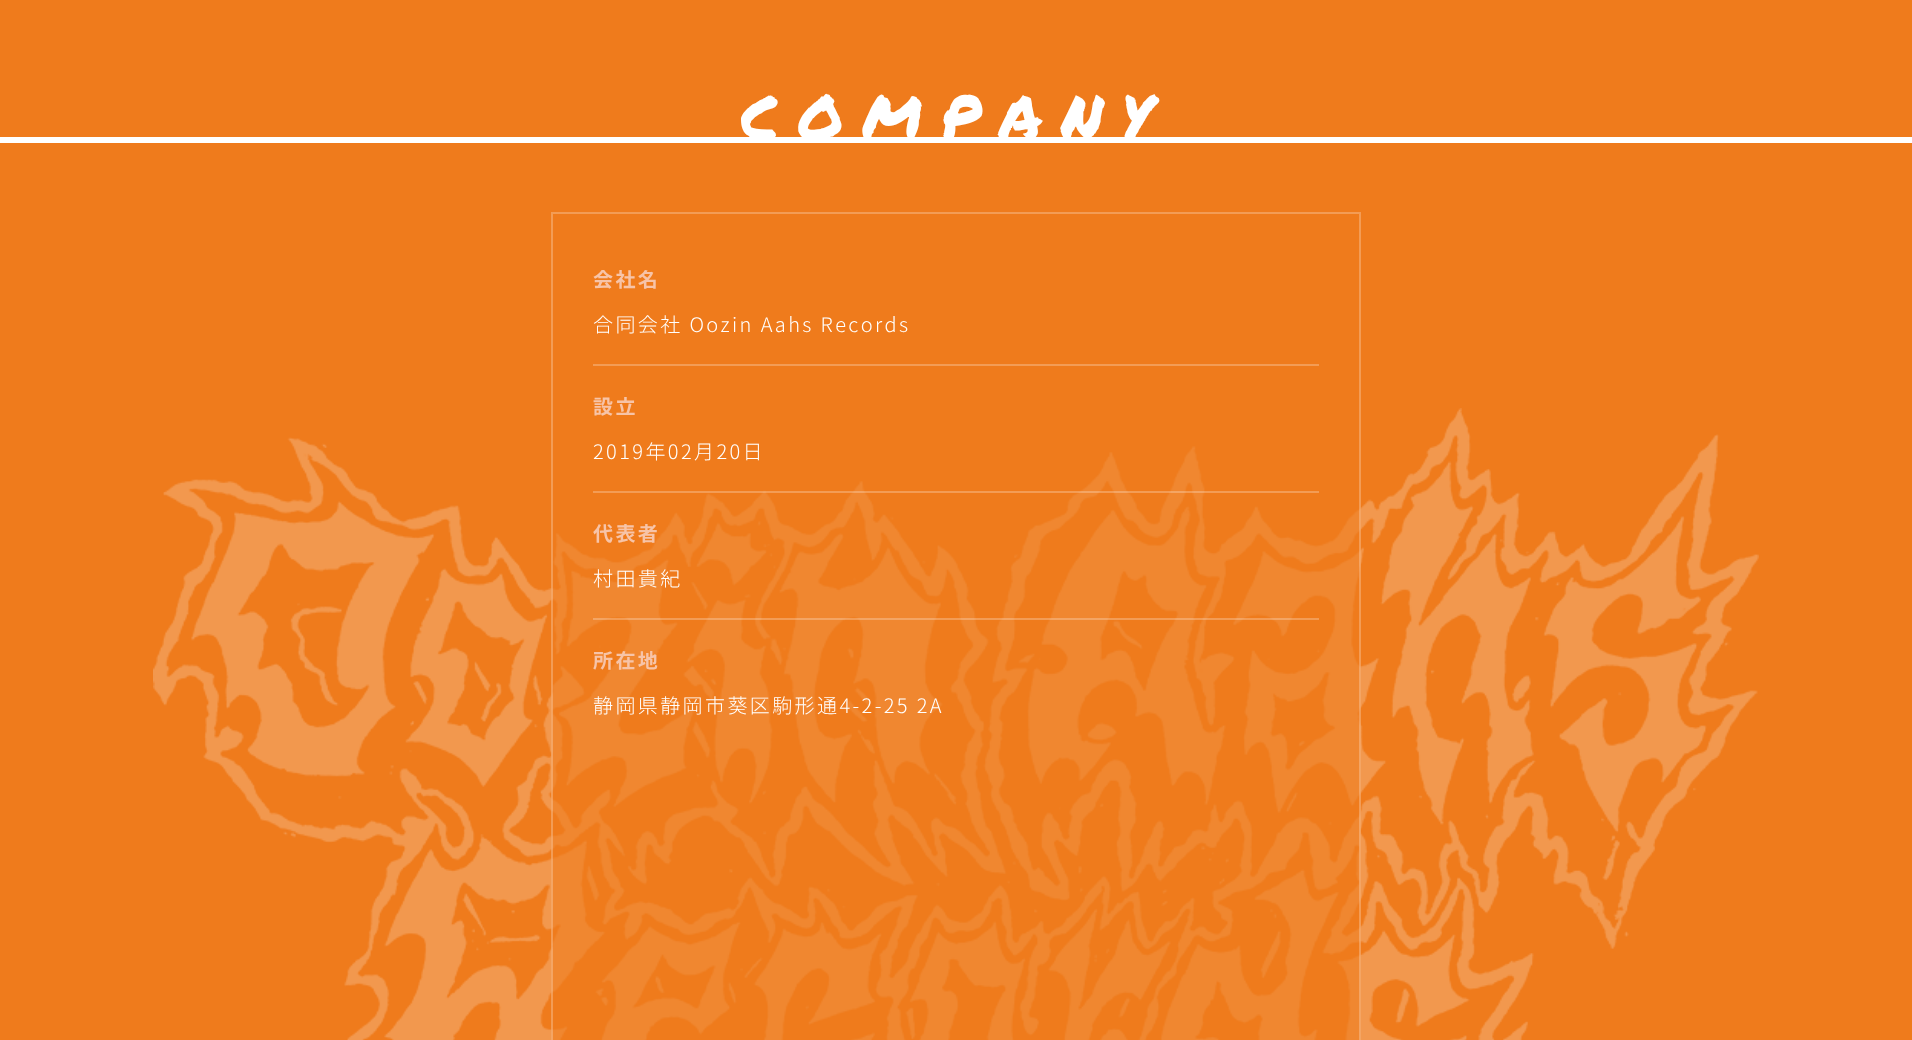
<svg xmlns="http://www.w3.org/2000/svg" width="1912" height="1040" viewBox="0 0 1912 1040">
  <style>*{font-kerning:none!important;font-variant-ligatures:none!important}</style>
  <rect width="100%" height="100%" fill="#ef7b1c"/>
  <path d="M0 137h1912v6H0z" fill="#fff"/>
  <image x="153" y="408" width="1606" height="632" href="img/1.png"/>
  <path d="M551 446h810v594H551z" fill="#ef7b1c99"/>
  <path d="M552 213h808v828H552z" fill="none" stroke="#ffffff40" stroke-width="2"/>
  <path d="M593 364h726v2H593z" fill="#f39c55"/>
  <path d="M593 491h726v2H593z" fill="#ffffff40"/>
  <path d="M593 618h726v2H593z" fill="#ffffff40"/>
  <text x="741" y="140" font-family="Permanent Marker" font-size="62" letter-spacing="18.5" fill="#fff">COMPANY</text>
  <text x="593" y="287" font-family="Noto Sans JP" font-size="20" font-weight="bold" letter-spacing="2.4" fill="#f7c4a8">会社名</text>
  <text x="593" y="332" font-family="Noto Sans JP" font-size="20" font-weight="300" letter-spacing="2.4" fill="#fff">合同会社 Oozin Aahs Records</text>
  <text x="593" y="414" font-family="Noto Sans JP" font-size="20" font-weight="bold" letter-spacing="2.4" fill="#f7c4a8">設立</text>
  <text x="593" y="459" font-family="Noto Sans JP" font-size="20" font-weight="300" letter-spacing="2.4" fill="#fff">2019年02月20日</text>
  <text x="593" y="541" font-family="Noto Sans JP" font-size="20" font-weight="bold" letter-spacing="2.4" fill="#f7c4a8">代表者</text>
  <text x="593" y="586" font-family="Noto Sans JP" font-size="20" font-weight="300" letter-spacing="2.4" fill="#fff">村田貴紀</text>
  <text x="593" y="668" font-family="Noto Sans JP" font-size="20" font-weight="bold" letter-spacing="2.4" fill="#f7c4a8">所在地</text>
  <text x="593" y="713" font-family="Noto Sans JP" font-size="20" font-weight="300" letter-spacing="2.4" fill="#fff">静岡県静岡市葵区駒形通4-2-25 2A</text>
</svg>
